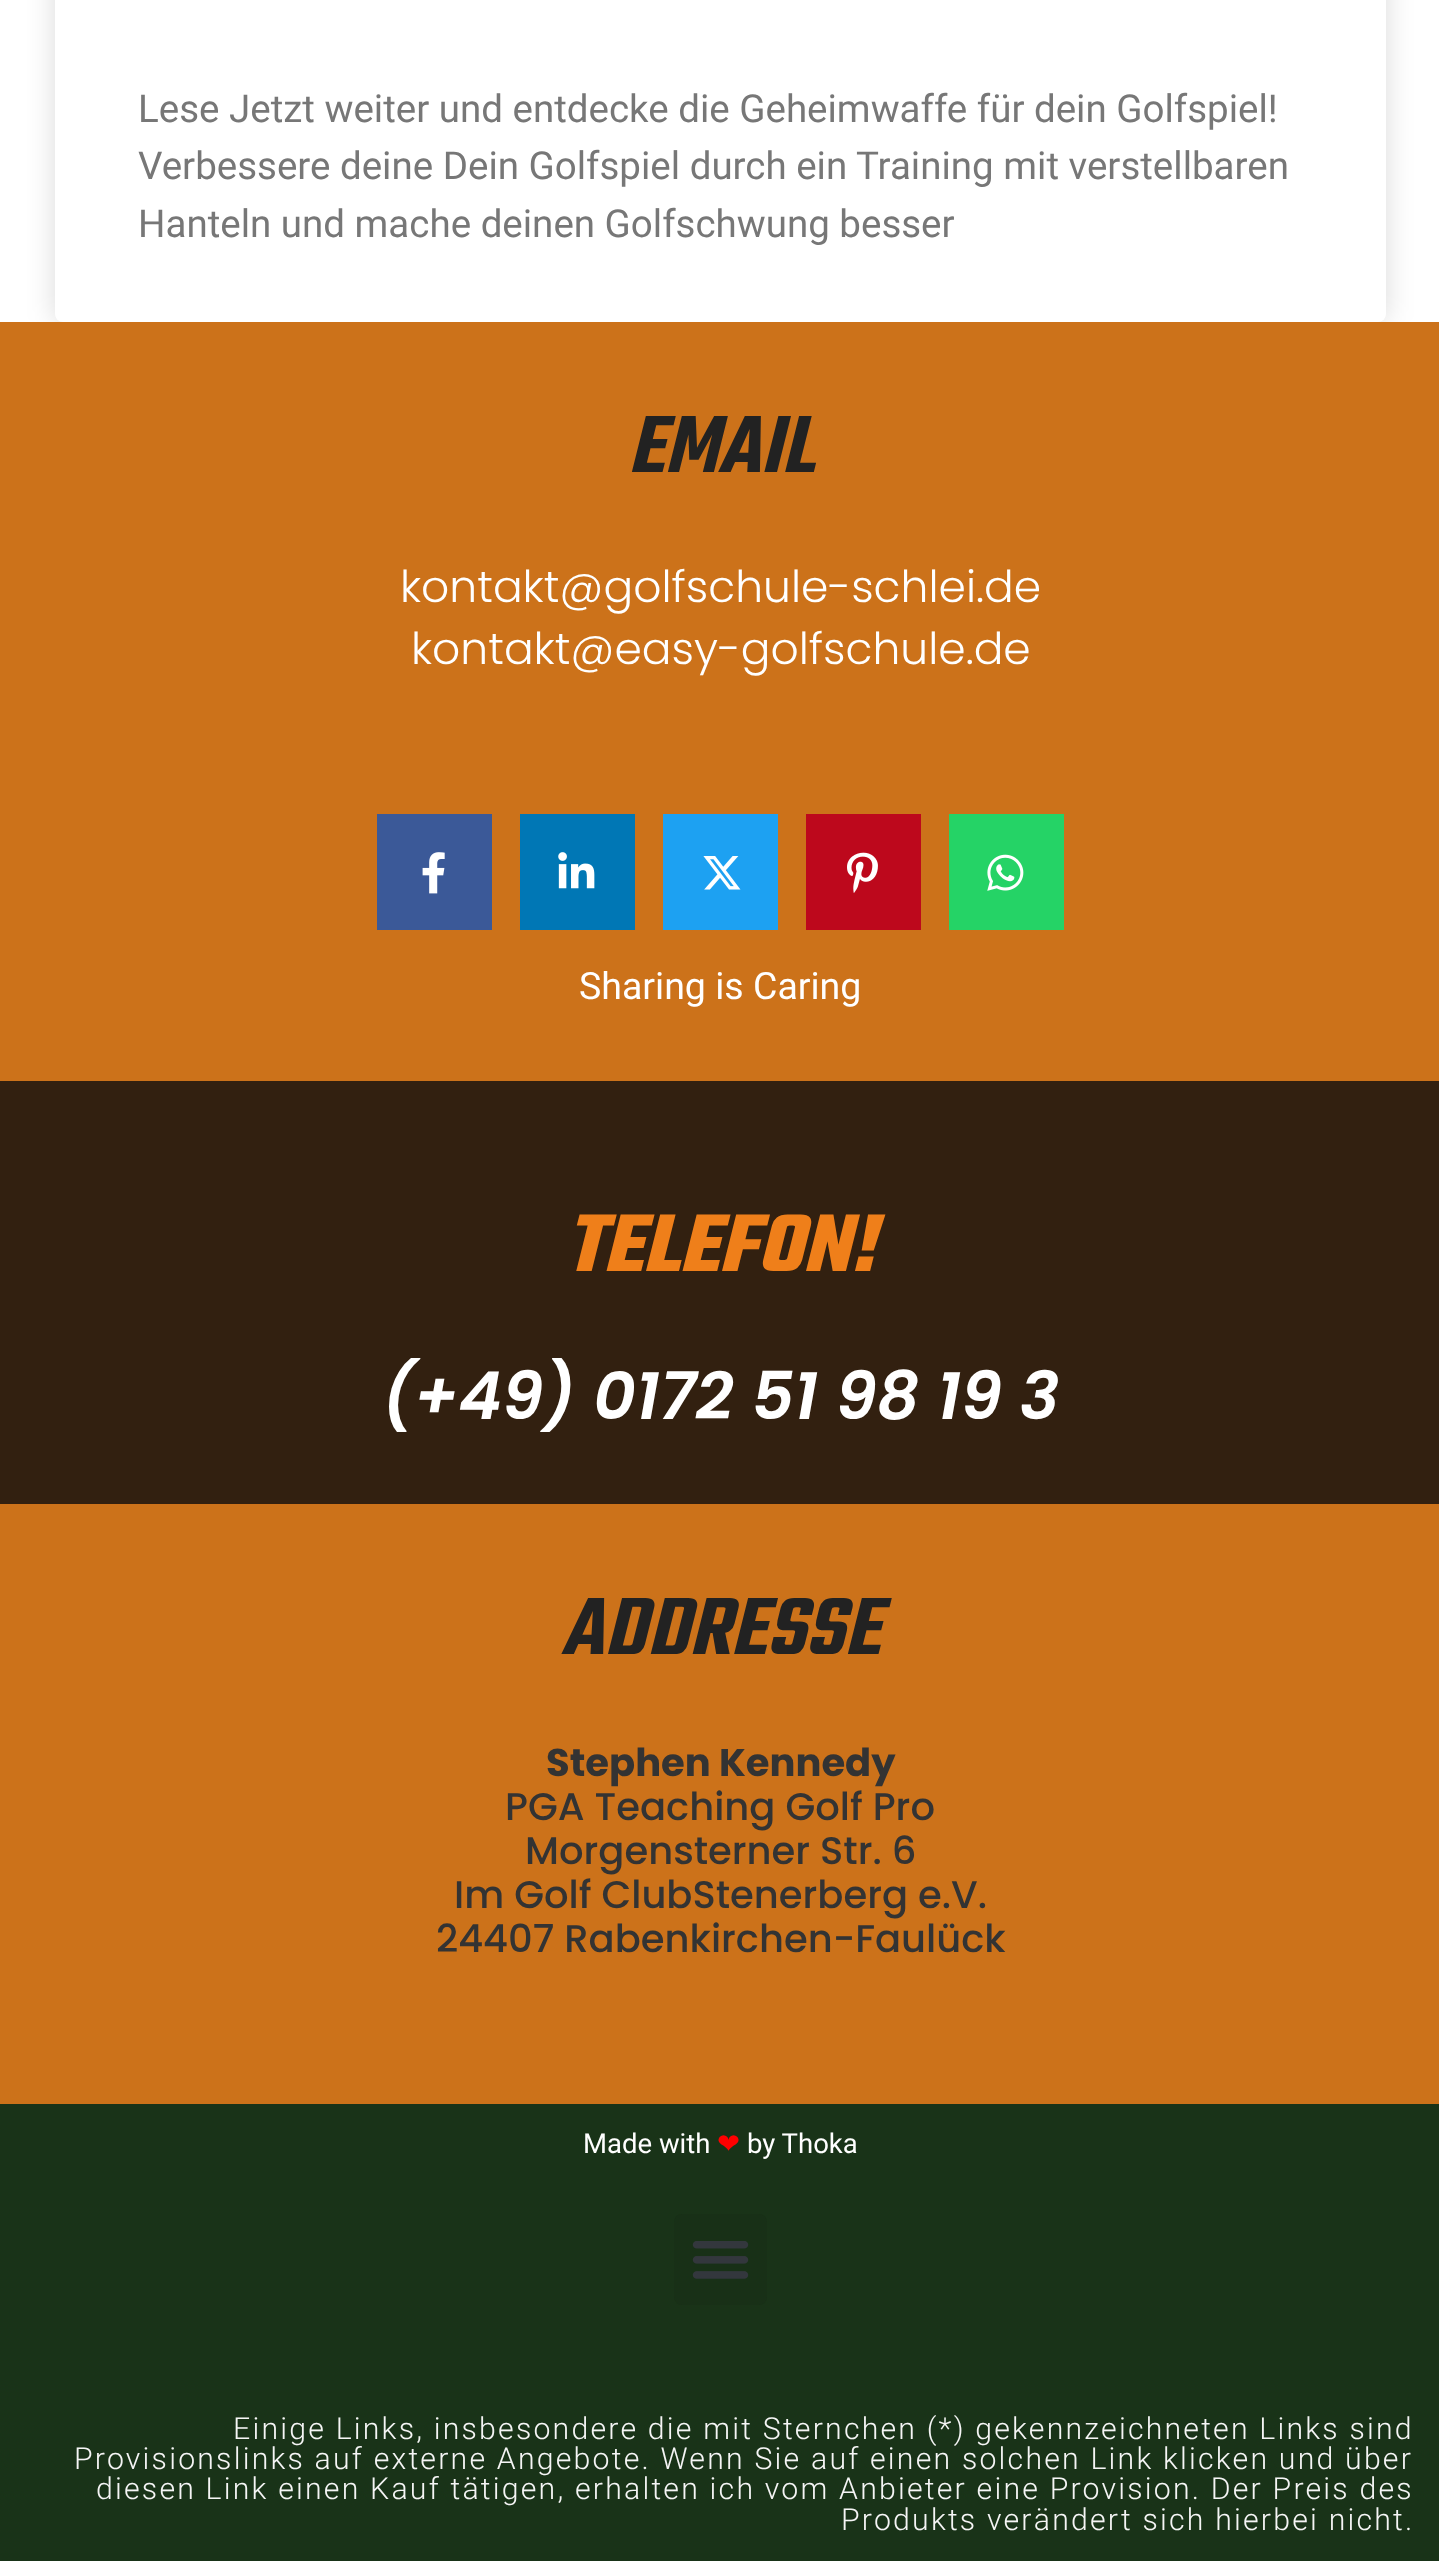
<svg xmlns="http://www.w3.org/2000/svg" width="1439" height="2561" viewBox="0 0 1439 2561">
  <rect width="100%" height="100%" fill="#fff"/>
  <rect x="55" y="-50" width="1331" height="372" rx="8" fill="#00000026" filter="blur(14px)"/>
  <rect x="55" y="-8" width="1331" height="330" rx="8" fill="#fff"/>
  <path d="M0 322h1439v1782H0z" fill="#cc721a"/>
  <path d="M377 814h115v116H377z" fill="#3b5998"/>
  <image x="422" y="852" width="23" height="42" href="img/1.png"/>
  <path d="M520 814h115v116H520z" fill="#0077b5"/>
  <image x="558" y="852" width="37" height="37" href="img/2.png"/>
  <path d="M663 814h115v116H663z" fill="#1da1f2"/>
  <image x="703" y="856" width="38" height="34" href="img/3.png"/>
  <path d="M806 814h115v116H806z" fill="#bd081c"/>
  <image x="847" y="852" width="31" height="41" href="img/4.png"/>
  <path d="M949 814h115v116H949z" fill="#25d366"/>
  <image x="987" y="854" width="37" height="37" href="img/5.png"/>
  <path d="M0 1081h1439v423H0z" fill="#322010"/>
  <path d="M0 2104h1439v457H0z" fill="#193318"/>
  <rect x="674" y="2214" width="93" height="91" rx="8" fill="#183017"/>
  <image x="692" y="2241" width="57" height="38" href="img/6.png"/>
  <g font-family="Roboto" font-size="38.5" fill="#777">
    <text x="138" y="122">Lese Jetzt weiter und entdecke die Geheimwaffe für dein Golfspiel!</text>
    <text x="138" y="179">Verbessere deine Dein Golfspiel durch ein Training mit verstellbaren</text>
    <text x="138" y="237">Hanteln und mache deinen Golfschwung besser</text>
  </g>
  <text x="628" y="472" font-family="Teko" font-size="88" font-weight="600" font-style="italic" fill="#222">EMAIL</text>
  <g font-family="Poppins" font-size="44" font-weight="300" fill="#fff">
    <text x="400" y="602">kontakt@golfschule-schlei.de</text>
    <text x="411" y="664">kontakt@easy-golfschule.de</text>
  </g>
  <text x="579" y="999" font-family="Roboto" font-size="37.5" fill="#fff">Sharing is Caring</text>
  <text x="565" y="1271" font-family="Teko" font-size="88" font-weight="bold" font-style="italic" fill="#ef7f1a">TELEFON!</text>
  <text x="382" y="1419" font-family="Poppins" font-size="66" font-weight="600" font-style="italic" fill="#fff">(+49) 0172 51 98 19 3</text>
  <text x="561" y="1654" font-family="Teko" font-size="88" font-weight="600" font-style="italic" fill="#222">ADDRESSE</text>
  <text x="546" y="1776" font-family="Poppins" font-size="38.5" font-weight="bold" fill="#333">Stephen Kennedy</text>
  <g font-family="Poppins" font-size="38.5" font-weight="500" fill="#333">
    <text x="505" y="1820">PGA Teaching Golf Pro</text>
    <text x="525" y="1864">Morgensterner Str. 6</text>
    <text x="454" y="1908">Im Golf ClubStenerberg e.V.</text>
    <text x="436" y="1952">24407 Rabenkirchen-Faulück</text>
  </g>
  <text x="583" y="2153" font-family="Roboto" font-size="27.5" fill="#fff">Made with</text>
  <text x="717" y="2153" font-family="DejaVu Sans" font-size="27.5" fill="#f00">❤</text>
  <text x="747" y="2153" font-family="Roboto" font-size="27.5" fill="#fff">by Thoka</text>
  <g font-family="Roboto" font-size="30.25" font-weight="300" letter-spacing="2.2" fill="#f5f5f5">
    <text x="233" y="2439">Einige Links, insbesondere die mit Sternchen (*) gekennzeichneten Links sind</text>
    <text x="74" y="2469">Provisionslinks auf externe Angebote. Wenn Sie auf einen solchen Link klicken und über</text>
    <text x="96" y="2499">diesen Link einen Kauf tätigen, erhalten ich vom Anbieter eine Provision. Der Preis des</text>
    <text x="841" y="2530">Produkts verändert sich hierbei nicht.</text>
  </g>
</svg>
